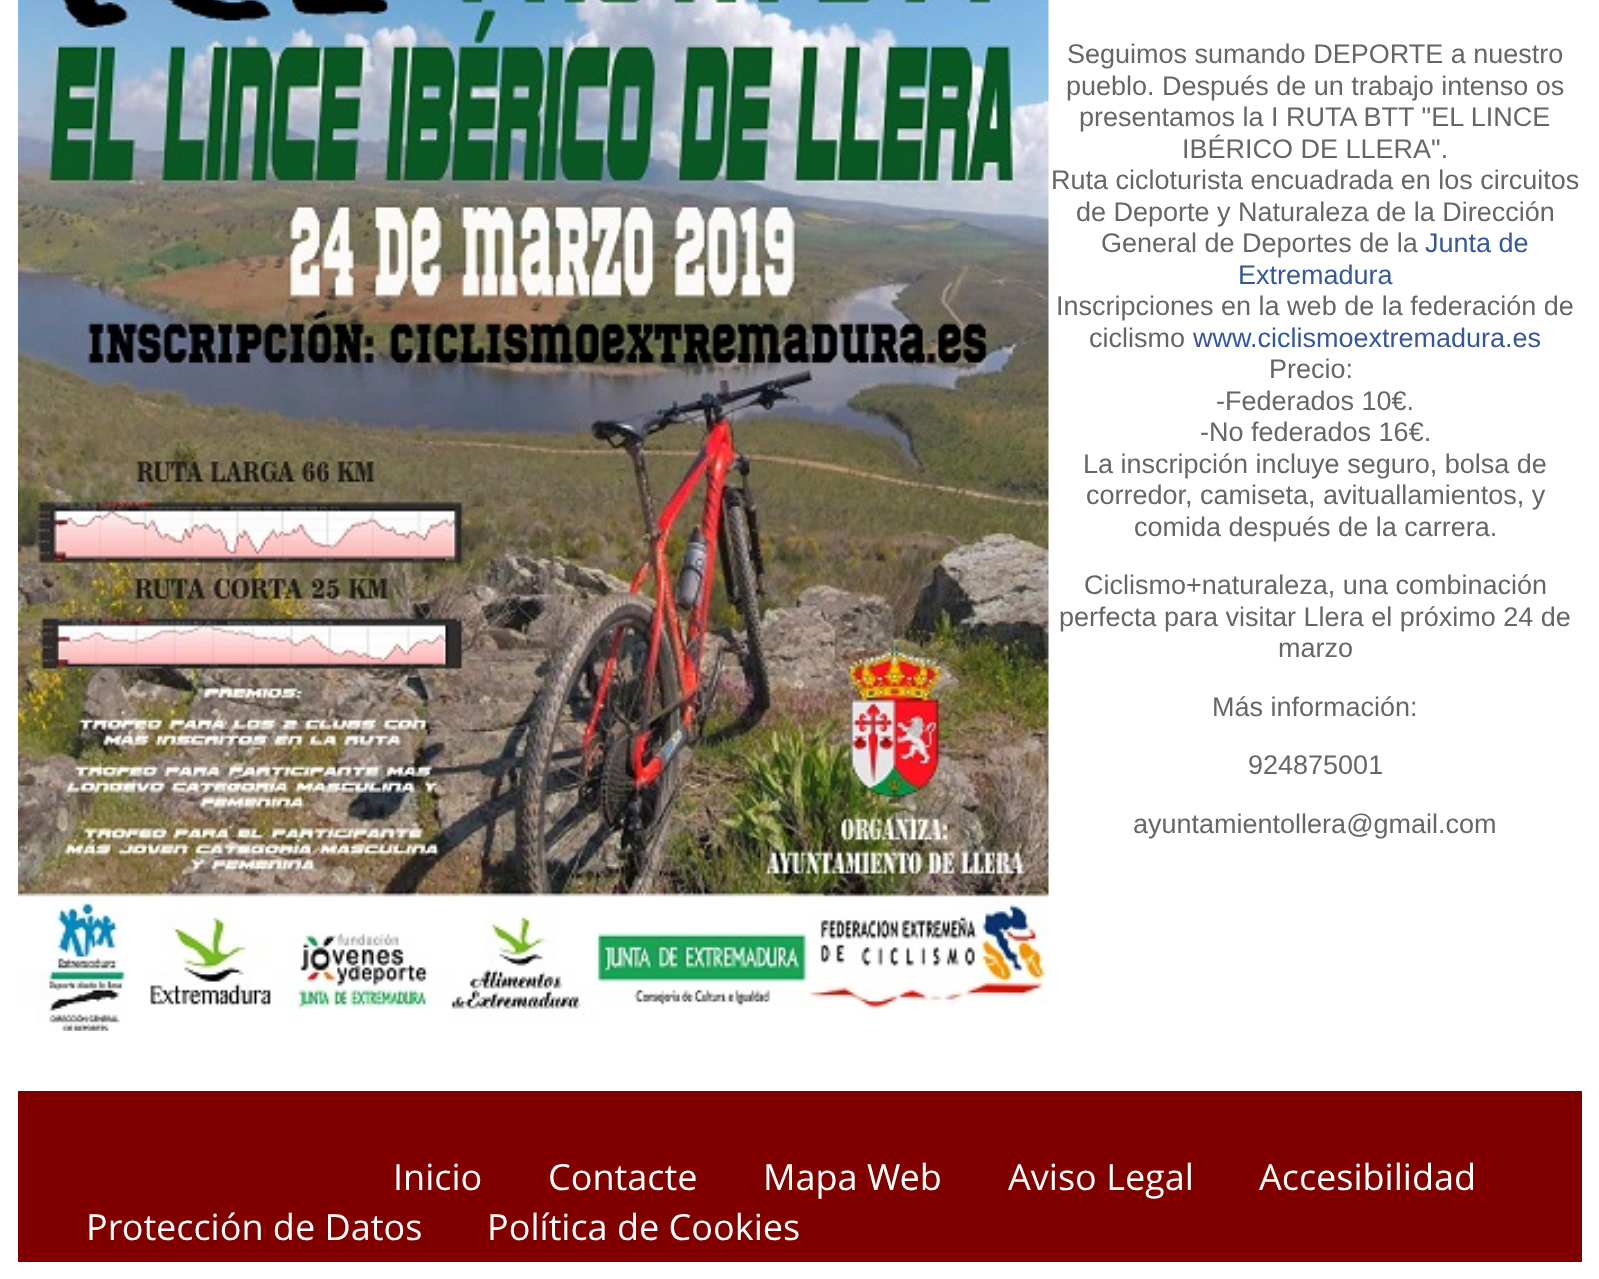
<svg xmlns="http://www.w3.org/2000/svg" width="1599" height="1279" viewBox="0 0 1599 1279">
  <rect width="100%" height="100%" fill="#fff"/>
  <image x="18" y="0" width="1031" height="1031" href="img/1.png"/>
  <path d="M18 1091h1564v171H18z" fill="#800000"/>
  <g font-family="Liberation Sans" font-size="27" fill="#666">
    <text x="1067" y="63">Seguimos sumando DEPORTE a nuestro</text>
    <text x="1066" y="95">pueblo. Después de un trabajo intenso os</text>
    <text x="1079" y="126">presentamos la I RUTA BTT "EL LINCE</text>
    <text x="1182" y="158">IBÉRICO DE LLERA".</text>
    <text x="1051" y="189">Ruta cicloturista encuadrada en los circuitos</text>
    <text x="1076" y="221">de Deporte y Naturaleza de la Dirección</text>
    <text x="1101" y="252">General de Deportes de la</text>
  </g>
  <g font-family="Liberation Sans" font-size="27" fill="#365899">
    <text x="1425" y="252">Junta de</text>
    <text x="1238" y="284">Extremadura</text>
  </g>
  <g font-family="Liberation Sans" font-size="27" fill="#666">
    <text x="1056" y="315">Inscripciones en la web de la federación de</text>
    <text x="1089" y="347">ciclismo</text>
  </g>
  <text x="1193" y="347" font-family="Liberation Sans" font-size="27" fill="#365899">www.ciclismoextremadura.es</text>
  <g font-family="Liberation Sans" font-size="27" fill="#666">
    <text x="1269" y="378">Precio:</text>
    <text x="1216" y="410">-Federados 10€.</text>
    <text x="1200" y="441">-No federados 16€.</text>
    <text x="1083" y="473">La inscripción incluye seguro, bolsa de</text>
    <text x="1086" y="504">corredor, camiseta, avituallamientos, y</text>
    <text x="1134" y="536">comida después de la carrera.</text>
    <text x="1084" y="594">Ciclismo+naturaleza, una combinación</text>
    <text x="1059" y="626">perfecta para visitar Llera el próximo 24 de</text>
    <text x="1278" y="657">marzo</text>
    <text x="1212" y="716">Más información:</text>
    <text x="1248" y="774">924875001</text>
    <text x="1133" y="833">ayuntamientollera@gmail.com</text>
  </g>
  <g font-family="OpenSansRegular" font-size="36" fill="#fff">
    <text x="393" y="1190">Inicio</text>
    <text x="548" y="1190">Contacte</text>
    <text x="763" y="1190">Mapa Web</text>
    <text x="1008" y="1190">Aviso Legal</text>
    <text x="1259" y="1190">Accesibilidad</text>
    <text x="86" y="1240">Protección de Datos</text>
    <text x="487" y="1240">Política de Cookies</text>
  </g>
</svg>
